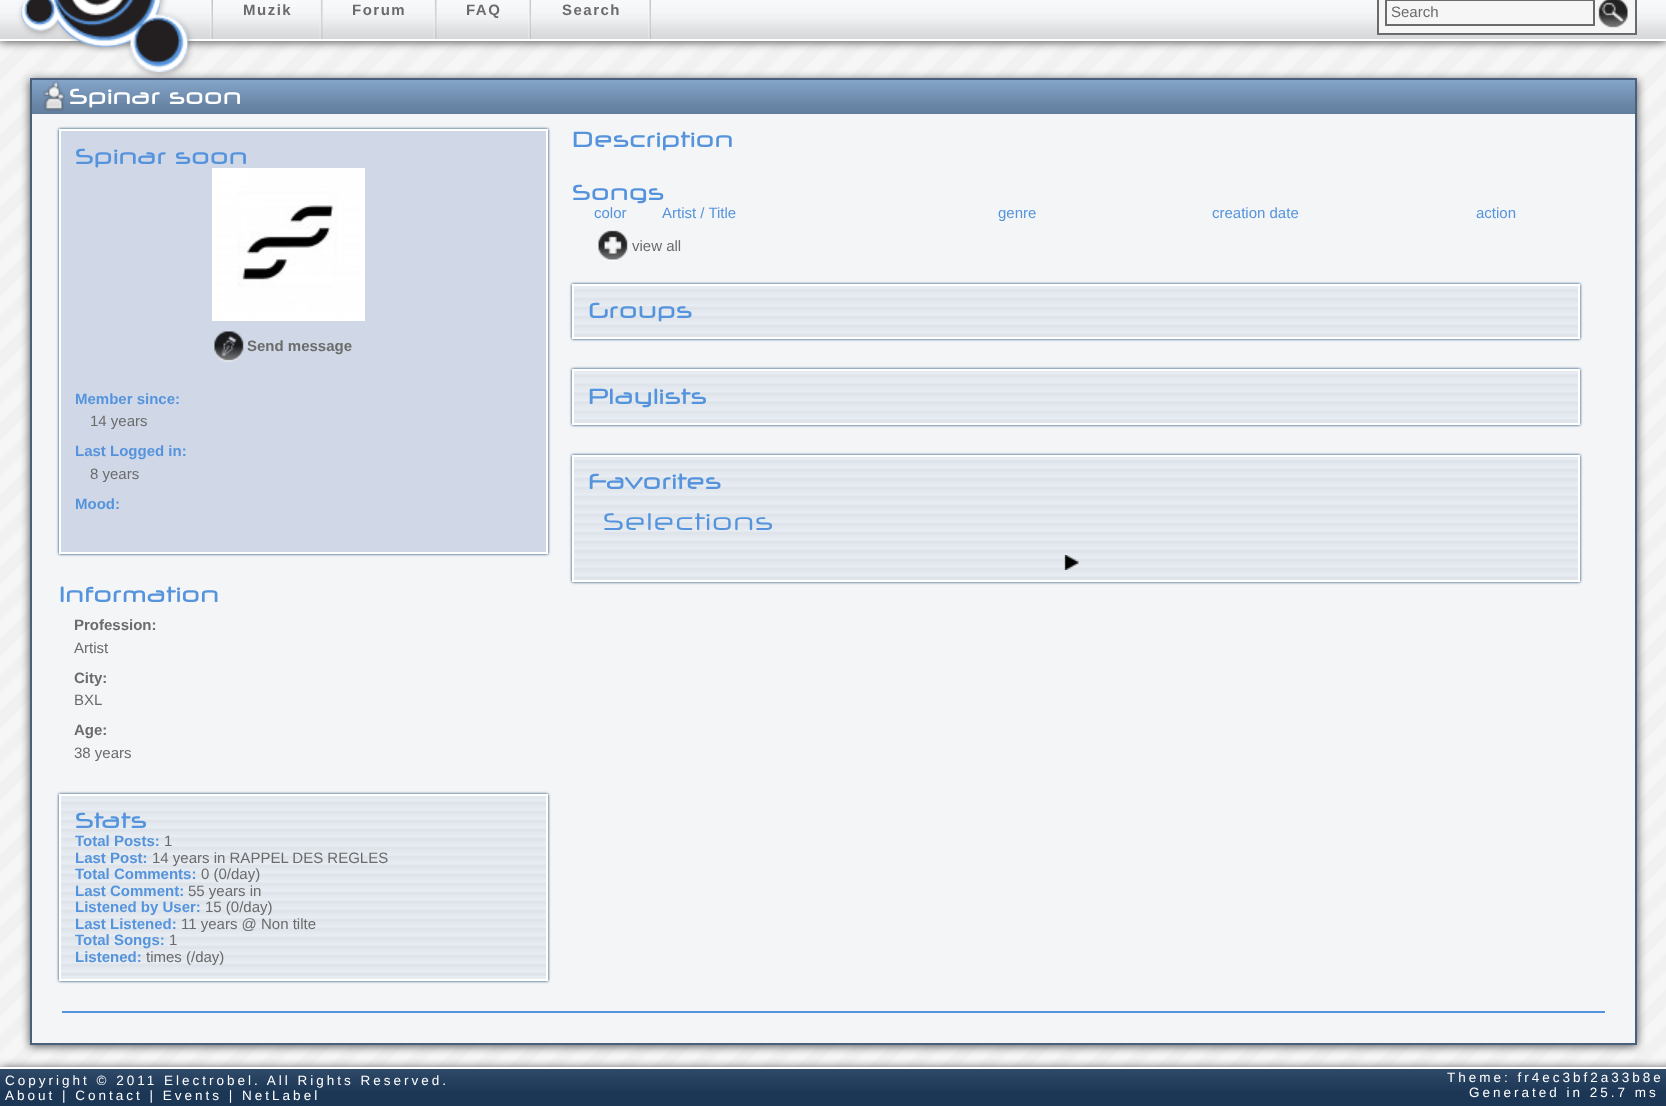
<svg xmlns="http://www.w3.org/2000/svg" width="1666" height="1106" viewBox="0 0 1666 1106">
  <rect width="100%" height="100%" fill="#f6f6f6"/>
  <image x="0" y="41" width="1666" height="1026" href="img/1.png"/>
  <path d="M0 -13h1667v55H0z" fill="#4d4d4d" filter="blur(5px)"/>
  <path d="M0 0h1666v39H0z" fill="#f4f5f7"/>
  <image x="0" y="0" width="1666" height="39" href="img/3.png"/>
  <path d="M0 39h1666v2H0z" fill="#fff"/>
  <rect x="23" y="-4" width="36" height="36" rx="18" fill="#6b6b6b99" filter="blur(3px)"/>
  <circle cx="39" cy="12" r="18" fill="#5594dd"/>
  <path d="M30 80h1607v966H30z" fill="#4d4d4d" filter="blur(5px)"/>
  <path d="M32 80h1603v34H32z" fill="#84a8d1"/>
  <image x="32" y="80" width="1603" height="34" href="img/8.png"/>
  <path d="M30 78h1607v2H30z" fill="#485f7e"/>
  <rect x="132" y="17" width="57" height="57" rx="28.5" fill="#6b6b6b99" filter="blur(3px)"/>
  <circle cx="159.5" cy="43.5" r="28.5" fill="#5594dd"/>
  <rect x="51" y="-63" width="111" height="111" rx="55.5" fill="#6b6b6b99" filter="blur(3px)"/>
  <rect x="50" y="-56" width="111" height="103" rx="55.5" fill="#5594dd"/>
  <image x="21" y="0" width="167" height="73" href="img/2.png"/>
  <image x="210" y="0" width="3" height="39" href="img/4.png"/>
  <image x="319" y="0" width="4" height="39" href="img/5.png"/>
  <image x="433" y="0" width="4" height="39" href="img/5.png"/>
  <image x="528" y="0" width="3" height="39" href="img/6.png"/>
  <image x="648" y="0" width="3" height="39" href="img/4.png"/>
  <path d="M1378 -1h258v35H1378z" fill="#f6f6f6" stroke="#6b6b6b" stroke-width="2"/>
  <path d="M1386 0h208v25H1386z" fill="none" stroke="#6b6b6b" stroke-width="2"/>
  <image x="1598" y="0" width="30" height="28" href="img/7.png"/>
  <path d="M1635 78h2v966H1635z" fill="#485f7e"/>
  <path d="M30 78h2v36H30z" fill="#485f7e"/>
  <path d="M32 114h1603v929H32z" fill="#f4f5f7"/>
  <path d="M30 1043h1607v2H30z" fill="#485f7e"/>
  <path d="M30 114h2v930H30z" fill="#485f7e"/>
  <image x="43" y="81" width="22" height="30" href="img/9.png"/>
  <path d="M59 129h489v425H59z" fill="#036" filter="blur(1.5px)"/>
  <path d="M60 130h487v423H60z" fill="#d0d8e7" stroke="#fff" stroke-width="2"/>
  <path d="M213 169h151v151H213z" fill="none" stroke="#fff" stroke-width="2"/>
  <image x="214" y="170" width="149" height="149" href="img/10.png"/>
  <image x="214" y="331" width="30" height="31" href="img/11.png"/>
  <path d="M59 794h489v187H59z" fill="#036" filter="blur(1.5px)"/>
  <path d="M61 796h485v183H61z" fill="#e6ecf2"/>
  <image x="61" y="796" width="485" height="180" href="img/12.png"/>
  <path d="M60 795h487v185H60z" fill="none" stroke="#fff" stroke-width="2"/>
  <image x="598" y="230" width="30" height="31" href="img/13.png"/>
  <path d="M572 284h1008v55H572z" fill="#036" filter="blur(1.5px)"/>
  <path d="M574 286h1004v51H574z" fill="#e6ecf2"/>
  <image x="574" y="289" width="1004" height="48" href="img/14.png"/>
  <path d="M573 285h1006v53H573z" fill="none" stroke="#fff" stroke-width="2"/>
  <path d="M572 369h1008v56H572z" fill="#036" filter="blur(1.5px)"/>
  <path d="M574 371h1004v52H574z" fill="#e6ecf2"/>
  <image x="574" y="374" width="1004" height="49" href="img/15.png"/>
  <path d="M573 370h1006v54H573z" fill="none" stroke="#fff" stroke-width="2"/>
  <path d="M572 455h1008v127H572z" fill="#036" filter="blur(1.5px)"/>
  <path d="M574 457h1004v123H574z" fill="#e6ecf2"/>
  <image x="574" y="460" width="1004" height="120" href="img/16.png"/>
  <path d="M573 456h1006v125H573z" fill="none" stroke="#fff" stroke-width="2"/>
  <image x="1064" y="555" width="15" height="15" href="img/17.png"/>
  <path d="M62 1011h1543v2H62z" fill="#5594dd"/>
  <path d="M0 1068h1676v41H0z" fill="#4d4d4d" filter="blur(5px)"/>
  <path d="M0 1069h1666v37H0z" fill="#34659e"/>
  <image x="0" y="1069" width="1666" height="37" href="img/18.png"/>
  <path d="M0 1067h1666v2H0z" fill="#fff"/>
  <g font-family="Liberation Sans" font-size="15" font-weight="bold" letter-spacing="1.5" fill="#6b6b6b">
    <text x="243" y="15">Muzik</text>
    <text x="352" y="15">Forum</text>
    <text x="466" y="15">FAQ</text>
    <text x="562" y="15">Search</text>
  </g>
  <text x="1391" y="17" font-family="Liberation Sans" font-size="15" fill="#6b6b6b">Search</text>
  <text x="69" y="104" font-family="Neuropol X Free" font-size="21" font-weight="bold" fill="#fff">Spinar soon</text>
  <text x="75" y="164" font-family="Neuropol X Free" font-size="21" font-weight="bold" fill="#5594dd">Spinar soon</text>
  <text x="247" y="351" font-family="Liberation Sans" font-size="15" font-weight="bold" fill="#6b6b6b">Send message</text>
  <text x="75" y="404" font-family="Liberation Sans" font-size="15" font-weight="bold" fill="#5594dd">Member since:</text>
  <text x="90" y="426" font-family="Liberation Sans" font-size="15" fill="#6b6b6b">14 years</text>
  <text x="75" y="456" font-family="Liberation Sans" font-size="15" font-weight="bold" fill="#5594dd">Last Logged in:</text>
  <text x="90" y="479" font-family="Liberation Sans" font-size="15" fill="#6b6b6b">8 years</text>
  <text x="75" y="509" font-family="Liberation Sans" font-size="15" font-weight="bold" fill="#5594dd">Mood:</text>
  <text x="59" y="602" font-family="Neuropol X Free" font-size="21" font-weight="bold" fill="#5594dd">Information</text>
  <text x="74" y="630" font-family="Liberation Sans" font-size="15" font-weight="bold" fill="#6b6b6b">Profession:</text>
  <text x="74" y="653" font-family="Liberation Sans" font-size="15" fill="#6b6b6b">Artist</text>
  <text x="74" y="683" font-family="Liberation Sans" font-size="15" font-weight="bold" fill="#6b6b6b">City:</text>
  <text x="74" y="705" font-family="Liberation Sans" font-size="15" fill="#6b6b6b">BXL</text>
  <text x="74" y="735" font-family="Liberation Sans" font-size="15" font-weight="bold" fill="#6b6b6b">Age:</text>
  <text x="74" y="758" font-family="Liberation Sans" font-size="15" fill="#6b6b6b">38 years</text>
  <text x="75" y="828" font-family="Neuropol X Free" font-size="21" font-weight="bold" fill="#5594dd">Stats</text>
  <text x="75" y="846" font-family="Liberation Sans" font-size="15" font-weight="bold" fill="#5594dd">Total Posts:</text>
  <text x="164" y="846" font-family="Liberation Sans" font-size="15" fill="#6b6b6b">1</text>
  <text x="75" y="863" font-family="Liberation Sans" font-size="15" font-weight="bold" fill="#5594dd">Last Post:</text>
  <text x="152" y="863" font-family="Liberation Sans" font-size="15" fill="#6b6b6b">14 years in RAPPEL DES REGLES</text>
  <text x="75" y="879" font-family="Liberation Sans" font-size="15" font-weight="bold" fill="#5594dd">Total Comments:</text>
  <text x="201" y="879" font-family="Liberation Sans" font-size="15" fill="#6b6b6b">0 (0/day)</text>
  <text x="75" y="896" font-family="Liberation Sans" font-size="15" font-weight="bold" fill="#5594dd">Last Comment:</text>
  <text x="188" y="896" font-family="Liberation Sans" font-size="15" fill="#6b6b6b">55 years in</text>
  <text x="75" y="912" font-family="Liberation Sans" font-size="15" font-weight="bold" fill="#5594dd">Listened by User:</text>
  <text x="205" y="912" font-family="Liberation Sans" font-size="15" fill="#6b6b6b">15 (0/day)</text>
  <text x="75" y="929" font-family="Liberation Sans" font-size="15" font-weight="bold" fill="#5594dd">Last Listened:</text>
  <text x="181" y="929" font-family="Liberation Sans" font-size="15" fill="#6b6b6b">11 years @ Non tilte</text>
  <text x="75" y="945" font-family="Liberation Sans" font-size="15" font-weight="bold" fill="#5594dd">Total Songs:</text>
  <text x="169" y="945" font-family="Liberation Sans" font-size="15" fill="#6b6b6b">1</text>
  <text x="75" y="962" font-family="Liberation Sans" font-size="15" font-weight="bold" fill="#5594dd">Listened:</text>
  <text x="146" y="962" font-family="Liberation Sans" font-size="15" fill="#6b6b6b">times (/day)</text>
  <g font-family="Neuropol X Free" font-size="21" font-weight="bold" fill="#5594dd">
    <text x="572" y="147">Description</text>
    <text x="572" y="200">Songs</text>
  </g>
  <g font-family="Liberation Sans" font-size="15" fill="#5594dd">
    <text x="594" y="218">color</text>
    <text x="662" y="218">Artist / Title</text>
    <text x="998" y="218">genre</text>
    <text x="1212" y="218">creation date</text>
    <text x="1476" y="218">action</text>
  </g>
  <text x="632" y="251" font-family="Liberation Sans" font-size="15" fill="#6b6b6b">view all</text>
  <g font-family="Neuropol X Free" font-size="21" font-weight="bold" fill="#5594dd">
    <text x="588" y="318">Groups</text>
    <text x="588" y="404">Playlists</text>
    <text x="588" y="489">Favorites</text>
  </g>
  <text x="603" y="530" font-family="Neuropol X Free" font-size="24" fill="#5594dd">Selections</text>
  <g font-family="Liberation Sans" font-size="13.5" letter-spacing="3" fill="#fff">
    <text x="5" y="1085">Copyright © 2011 Electrobel. All Rights Reserved.</text>
    <text x="1447" y="1082">Theme: fr4ec3bf2a33b8e</text>
    <text x="5" y="1100">About | Contact | Events | NetLabel</text>
    <text x="1469" y="1097">Generated in 25.7 ms</text>
  </g>
</svg>
